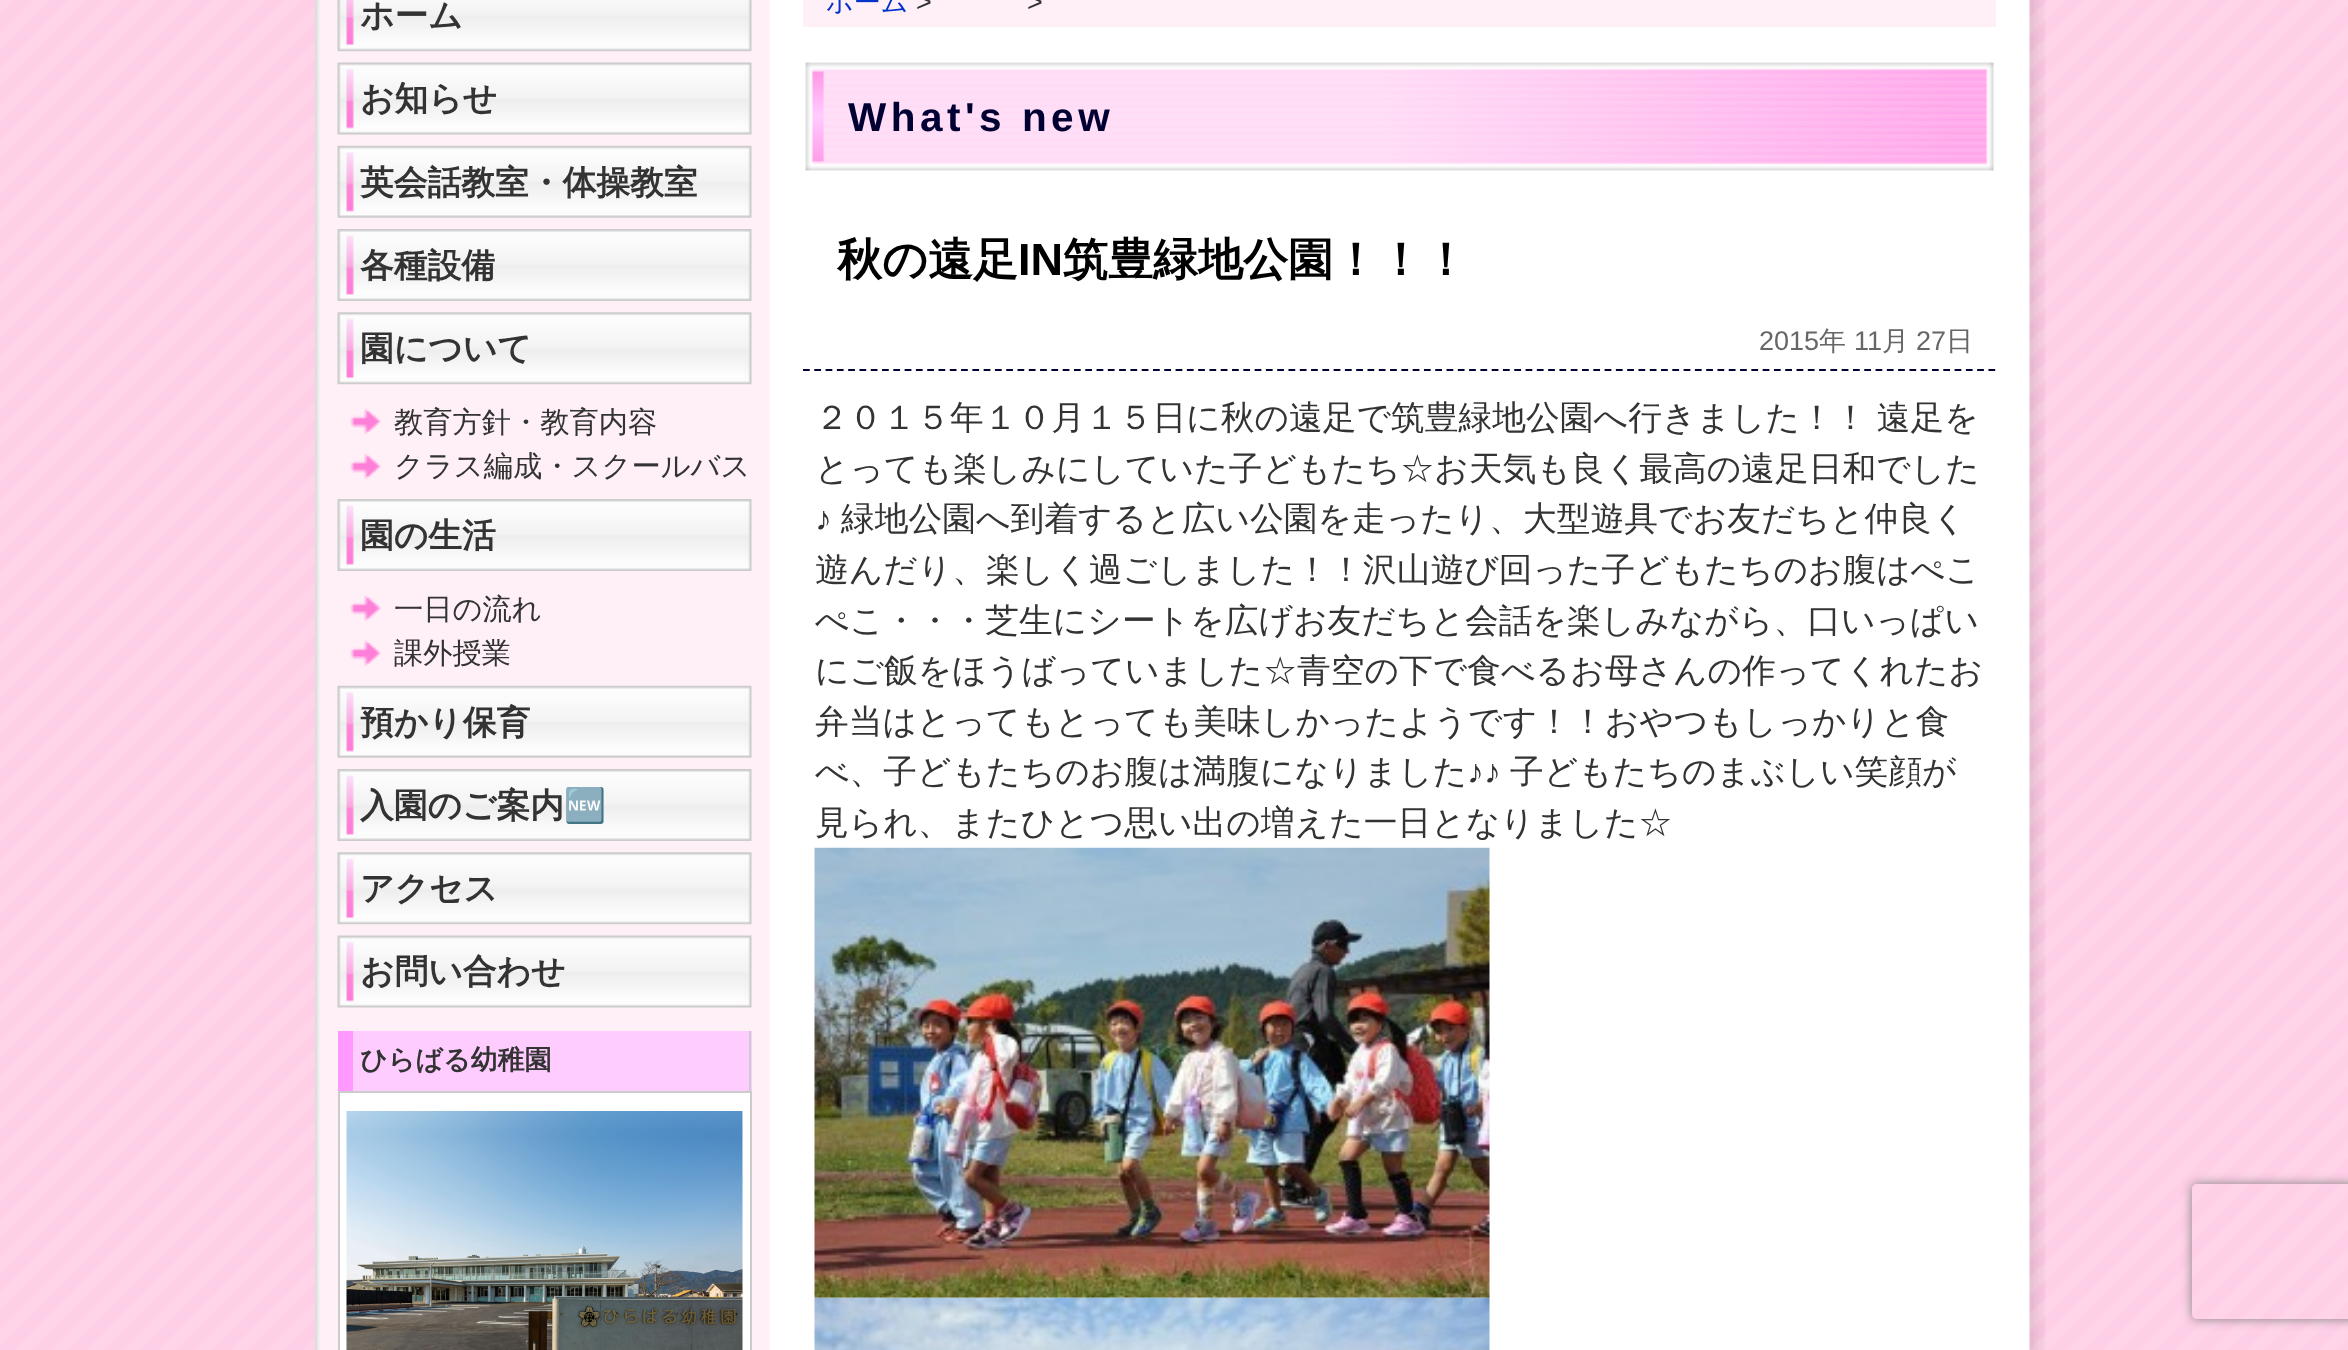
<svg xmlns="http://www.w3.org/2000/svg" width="2348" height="1350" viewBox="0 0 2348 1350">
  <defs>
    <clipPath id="clip1"><path d="M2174 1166H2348V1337H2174ZM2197 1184H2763C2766 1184 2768 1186 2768 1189V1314C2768 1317 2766 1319 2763 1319H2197C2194 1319 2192 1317 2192 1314V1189C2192 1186 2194 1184 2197 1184Z" clip-rule="evenodd"/></clipPath>
  </defs>
  <rect width="100%" height="100%" fill="#fff"/>
  <image x="0" y="0" width="2348" height="1350" href="img/1.png"/>
  <image x="337" y="0" width="415" height="52" href="img/2.png"/>
  <image x="337" y="62" width="415" height="73" href="img/3.png"/>
  <image x="337" y="145" width="415" height="73" href="img/4.png"/>
  <image x="337" y="229" width="415" height="72" href="img/5.png"/>
  <image x="337" y="312" width="415" height="73" href="img/6.png"/>
  <image x="350" y="408" width="31" height="27" href="img/7.png"/>
  <image x="350" y="453" width="31" height="27" href="img/8.png"/>
  <image x="337" y="499" width="415" height="72" href="img/5.png"/>
  <image x="350" y="595" width="31" height="26" href="img/9.png"/>
  <image x="350" y="640" width="31" height="26" href="img/9.png"/>
  <image x="337" y="685" width="415" height="73" href="img/4.png"/>
  <image x="337" y="769" width="415" height="72" href="img/10.png"/>
  <image x="337" y="852" width="415" height="73" href="img/6.png"/>
  <image x="337" y="935" width="415" height="73" href="img/3.png"/>
  <path d="M353 1031h399v60H353z" fill="#fcf"/>
  <path d="M749 1031h2v60H749z" fill="#ccc"/>
  <path d="M338 1031h15v60H338z" fill="#f9f"/>
  <path d="M339 1092h412v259H339z" fill="#fff" stroke="#ccc" stroke-width="2"/>
  <image x="346" y="1111" width="397" height="239" href="img/11.png"/>
  <path d="M803 0h1193v27H803z" fill="#fff0f7"/>
  <image x="805" y="62" width="1189" height="109" href="img/12.png"/>
  <path d="M803 370H1996" fill="none" stroke="#003" stroke-width="2.2" stroke-dasharray="6.75 4.54"/>
  <image x="814" y="847" width="676" height="451" href="img/13.png"/>
  <image x="814" y="1297" width="676" height="53" href="img/14.png"/>
  <g clip-path="url(#clip1)">
    <rect x="2192" y="1184" width="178" height="135" rx="5" fill="#808080" filter="blur(5.5px)"/>
  </g>
  <g font-family="WenQuanYi Zen Hei" font-size="33.75" font-weight="bold" fill="#333">
    <text x="360" y="27">ホーム</text>
    <text x="360" y="110">お知らせ</text>
    <text x="360" y="194">英会話教室・体操教室</text>
    <text x="360" y="277">各種設備</text>
    <text x="360" y="360">園について</text>
  </g>
  <g font-family="WenQuanYi Zen Hei" font-size="29.25" font-weight="500" fill="#333">
    <text x="394" y="432">教育方針・教育内容</text>
    <text x="394" y="476">クラス編成・スクールバス</text>
  </g>
  <text x="360" y="547" font-family="WenQuanYi Zen Hei" font-size="33.75" font-weight="bold" fill="#333">園の生活</text>
  <g font-family="WenQuanYi Zen Hei" font-size="29.25" font-weight="500" fill="#333">
    <text x="394" y="619">一日の流れ</text>
    <text x="394" y="663">課外授業</text>
  </g>
  <g font-family="WenQuanYi Zen Hei" font-size="33.75" font-weight="bold" fill="#333">
    <text x="360" y="734">預かり保育</text>
    <text x="360" y="817">入園のご案内</text>
  </g>
  <text x="564" y="817" font-family="Noto Color Emoji" font-size="33.75" font-weight="bold" fill="#333">🆕</text>
  <g font-family="WenQuanYi Zen Hei" font-size="33.75" font-weight="bold" fill="#333">
    <text x="360" y="900">アクセス</text>
    <text x="360" y="983">お問い合わせ</text>
  </g>
  <text x="360" y="1069" font-family="WenQuanYi Zen Hei" font-size="27" font-weight="bold" fill="#333">ひらばる幼稚園</text>
  <text x="826" y="11" font-family="WenQuanYi Zen Hei" font-size="27" font-weight="500" fill="#03c">ホーム</text>
  <g font-family="Liberation Sans" font-size="27" fill="#333">
    <text x="916" y="11">&gt;</text>
    <text x="1027" y="11">&gt;</text>
  </g>
  <text x="848" y="131" font-family="Liberation Sans" font-size="40.5" font-weight="bold" letter-spacing="4.5" fill="#003">What's new</text>
  <text x="837" y="275" font-family="WenQuanYi Zen Hei" font-size="45" font-weight="bold" fill="#000">秋の遠足</text>
  <text x="1018" y="275" font-family="Liberation Sans" font-size="45" font-weight="bold" fill="#000">IN</text>
  <text x="1063" y="275" font-family="WenQuanYi Zen Hei" font-size="45" font-weight="bold" fill="#000">筑豊緑地公園！！！</text>
  <text x="1759" y="350" font-family="Liberation Sans" font-size="27" fill="#666">2015</text>
  <text x="1819" y="350" font-family="WenQuanYi Zen Hei" font-size="27" font-weight="500" fill="#666">年</text>
  <text x="1854" y="350" font-family="Liberation Sans" font-size="27" fill="#666">11</text>
  <text x="1882" y="350" font-family="WenQuanYi Zen Hei" font-size="27" font-weight="500" fill="#666">月</text>
  <text x="1916" y="350" font-family="Liberation Sans" font-size="27" fill="#666">27</text>
  <text x="1946" y="350" font-family="WenQuanYi Zen Hei" font-size="27" font-weight="500" fill="#666">日</text>
  <g font-family="WenQuanYi Zen Hei" font-size="33.75" font-weight="500" fill="#333">
    <text x="815" y="429" word-spacing="-1">２０１５年１０月１５日に秋の遠足で筑豊緑地公園へ行きました！！ 遠足を</text>
    <text x="815" y="480">とっても楽しみにしていた子どもたち☆お天気も良く最高の遠足日和でした</text>
  </g>
  <text x="815" y="530" font-family="Liberation Sans" font-size="33.75" fill="#333">♪</text>
  <g font-family="WenQuanYi Zen Hei" font-size="33.75" font-weight="500" fill="#333">
    <text x="841" y="530">緑地公園へ到着すると広い公園を走ったり、大型遊具でお友だちと仲良く</text>
    <text x="815" y="581">遊んだり、楽しく過ごしました！！沢山遊び回った子どもたちのお腹はぺこ</text>
    <text x="815" y="632">ぺこ・・・芝生にシートを広げお友だちと会話を楽しみながら、口いっぱい</text>
    <text x="815" y="682">にご飯をほうばっていました☆青空の下で食べるお母さんの作ってくれたお</text>
    <text x="815" y="733">弁当はとってもとっても美味しかったようです！！おやつもしっかりと食</text>
    <text x="815" y="783">べ、子どもたちのお腹は満腹になりました</text>
  </g>
  <text x="1467" y="783" font-family="Liberation Sans" font-size="33.75" fill="#333">♪♪</text>
  <g font-family="WenQuanYi Zen Hei" font-size="33.75" font-weight="500" fill="#333">
    <text x="1510" y="783">子どもたちのまぶしい笑顔が</text>
    <text x="815" y="834">見られ、またひとつ思い出の増えた一日となりました☆</text>
  </g>
</svg>
